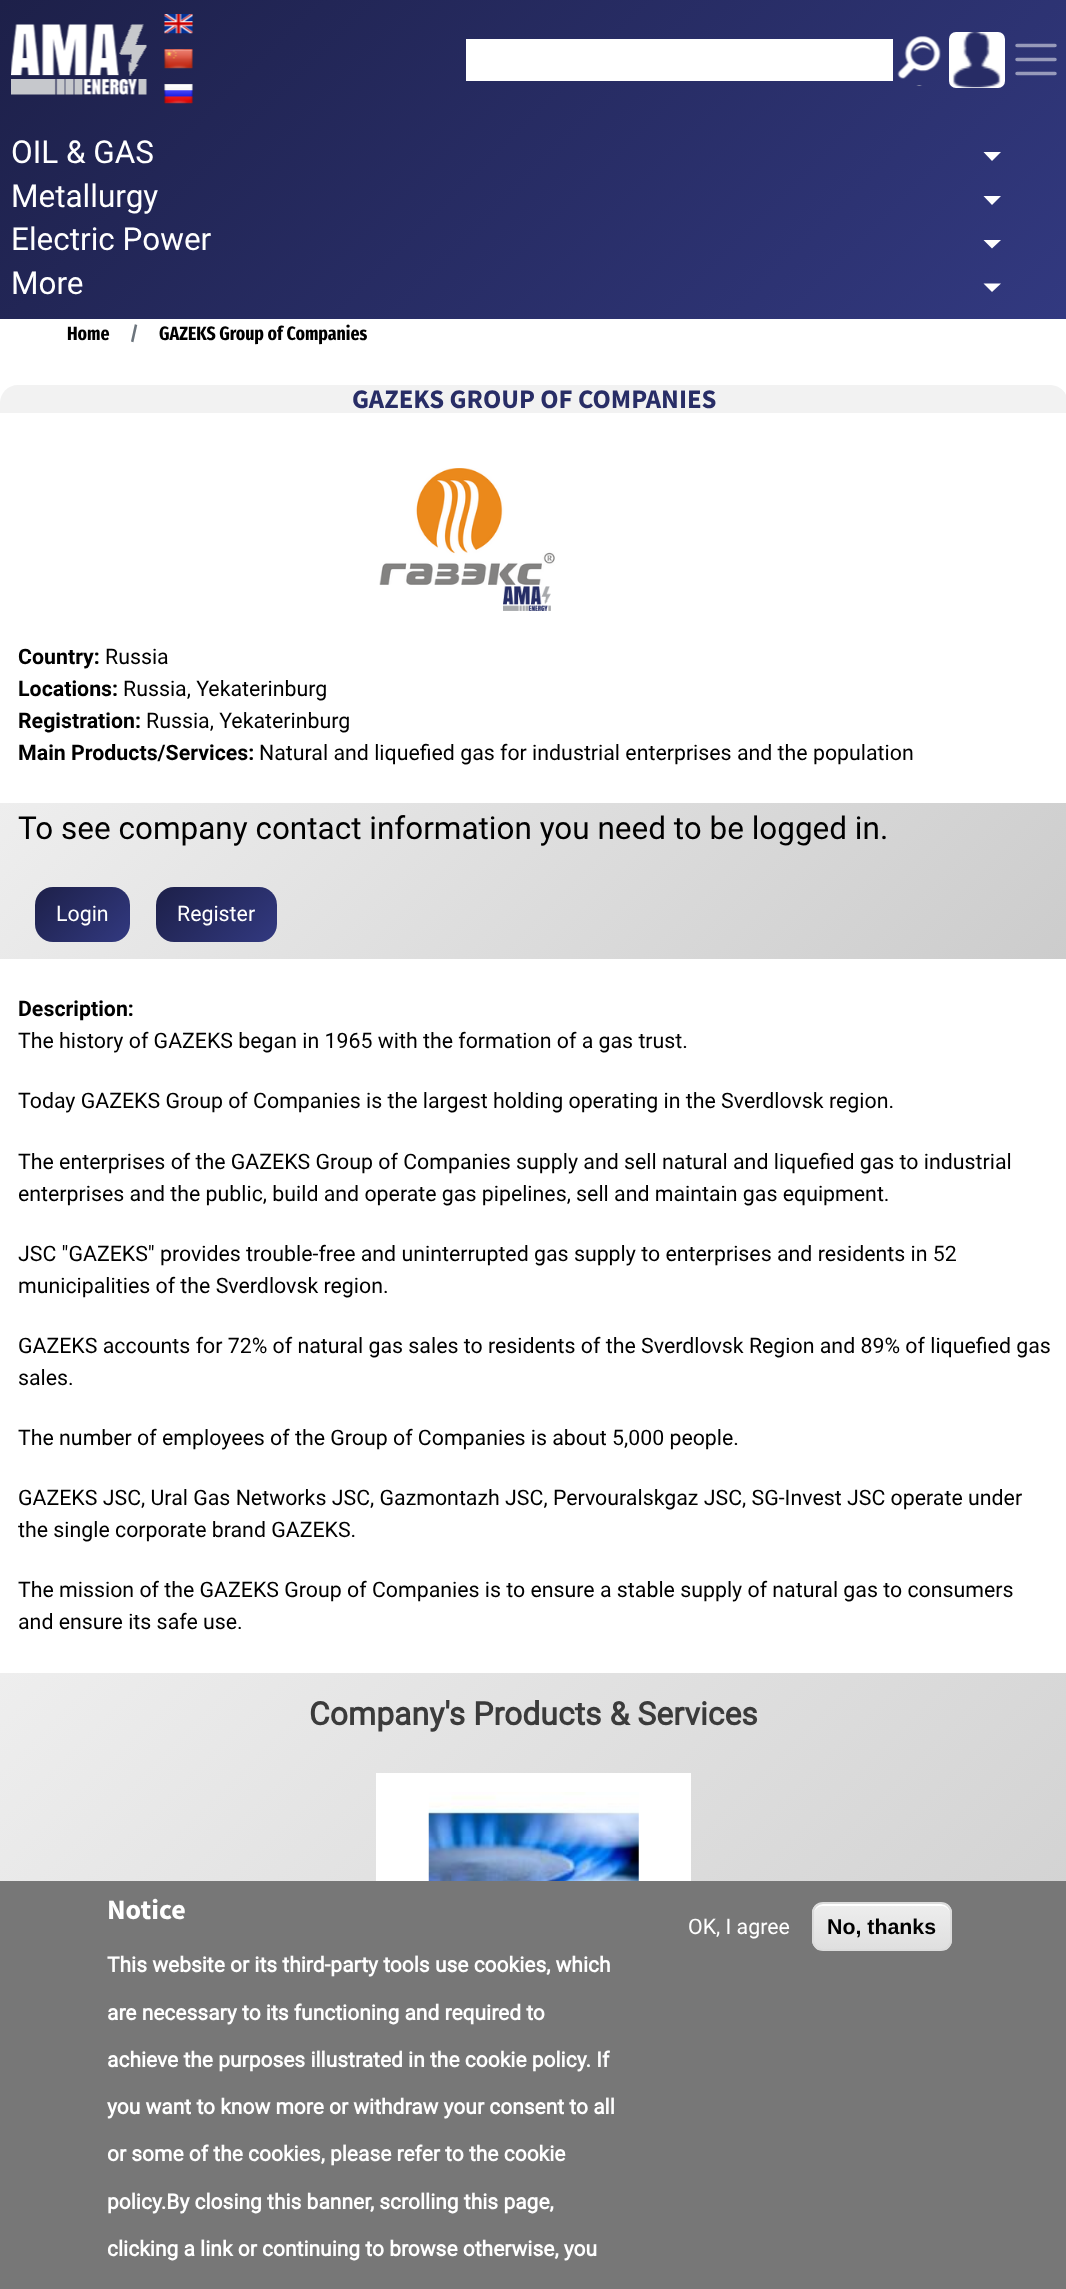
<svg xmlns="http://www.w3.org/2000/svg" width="1066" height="2289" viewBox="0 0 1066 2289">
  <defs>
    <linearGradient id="g1" gradientUnits="userSpaceOnUse" x1="880" y1="506" x2="187" y2="-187"><stop offset="0" stop-color="#323980"/><stop offset="1" stop-color="#1d2049"/></linearGradient>
    <linearGradient id="g2" gradientUnits="userSpaceOnUse" x1="840" y1="1187" x2="228" y2="575"><stop offset="0" stop-color="#ccc"/><stop offset="1" stop-color="#eee"/></linearGradient>
    <linearGradient id="g3" gradientUnits="userSpaceOnUse" x1="119" y1="952" x2="45" y2="877"><stop offset="0" stop-color="#323980"/><stop offset="1" stop-color="#1d2049"/></linearGradient>
    <linearGradient id="g4" gradientUnits="userSpaceOnUse" x1="260" y1="958" x2="172" y2="871"><stop offset="0" stop-color="#323980"/><stop offset="1" stop-color="#1d2049"/></linearGradient>
    <linearGradient id="g5" gradientUnits="userSpaceOnUse" x1="938" y1="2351" x2="130" y2="1543"><stop offset="0" stop-color="#ccc"/><stop offset="1" stop-color="#eee"/></linearGradient>
    <clipPath id="clip1"><rect x="812" y="1902" width="140" height="49" rx="11"/></clipPath>
    <linearGradient id="g6" gradientUnits="userSpaceOnUse" x1="882" y1="1904" x2="882" y2="1950"><stop offset="0.05" stop-color="#ededed"/><stop offset="1" stop-color="#dfdfdf"/></linearGradient>
  </defs>
  <rect width="100%" height="100%" fill="#fff"/>
  <path d="M0 0h1066v319H0z" fill="url(#g1)"/>
  <image x="11" y="24" width="136" height="71" href="img/1.png"/>
  <image x="164" y="14" width="29" height="20" href="img/2.png"/>
  <image x="164" y="49" width="29" height="20" href="img/3.png"/>
  <image x="164" y="84" width="29" height="20" href="img/4.png"/>
  <path d="M466 39h427v42H466z" fill="#fff"/>
  <image x="897" y="36" width="44" height="50" href="img/5.png"/>
  <rect x="949" y="32" width="56" height="56" rx="7" fill="#fff"/>
  <image x="952" y="32" width="49" height="56" href="img/6.png"/>
  <path d="M1017 45.5H1055M1017 59.5H1055M1017 73.5H1055" fill="none" stroke="#ffffff80" stroke-width="3.5" stroke-linecap="round"/>
  <path d="M983.5 152H1001L992 161Z" fill="#fff"/>
  <path d="M983.5 196H1001L992 205Z" fill="#fff"/>
  <path d="M983.5 240H1001L992 248.5Z" fill="#fff"/>
  <path d="M983.5 283.5H1001L992 292Z" fill="#fff"/>
  <path d="M18 385H1050C1060 385 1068 393 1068 403V413H0V403C0 393 8 385 18 385Z" fill="#f2f2f2"/>
  <image x="379" y="468" width="176" height="143" href="img/7.png"/>
  <path d="M0 803h1066v156H0z" fill="url(#g2)"/>
  <rect x="35" y="887" width="95" height="55" rx="18" fill="url(#g3)"/>
  <rect x="156" y="887" width="121" height="55" rx="18" fill="url(#g4)"/>
  <path d="M0 1673h1066v208H0z" fill="url(#g5)"/>
  <path d="M376 1773h315v108H376z" fill="#fff"/>
  <image x="428" y="1792" width="211" height="89" href="img/8.png"/>
  <path d="M0 1881h1066v408H0z" fill="#777"/>
  <g clip-path="url(#clip1)">
    <path d="M812 1904h140v46H812z" fill="url(#g6)"/>
  </g>
  <path d="M822 1906H942C946 1906 950 1910 950 1914C950 1899 930 1904 921 1904H843C834 1904 814 1899 814 1914C814 1910 818 1906 822 1906Z" fill="#fff"/>
  <rect x="813" y="1903" width="138" height="47" rx="10" fill="none" stroke="#dcdcdc" stroke-width="2"/>
  <g font-family="Roboto" font-size="31.5" fill="#fff">
    <text x="11" y="163">OIL &amp; GAS</text>
    <text x="11" y="207">Metallurgy</text>
    <text x="11" y="250">Electric Power</text>
    <text x="11" y="294">More</text>
  </g>
  <text x="67" y="340" font-family="Fira Sans Extra Condensed" font-size="19.25" font-weight="bold" fill="#000">Home</text>
  <text x="130" y="340" font-family="Fira Sans Extra Condensed" font-size="19.25" font-weight="bold" fill="#6c757d">/</text>
  <text x="159" y="340" font-family="Fira Sans Extra Condensed" font-size="19.25" font-weight="bold" fill="#000">GAZEKS Group of Companies</text>
  <text x="352" y="408" font-family="Source Sans Pro" font-size="26.75" font-weight="bold" fill="#282d66">GAZEKS GROUP OF COMPANIES</text>
  <text x="18" y="664" font-family="Roboto" font-size="21.35" font-weight="bold" fill="#000">Country:</text>
  <text x="105" y="664" font-family="Roboto" font-size="21.35" fill="#000">Russia</text>
  <text x="18" y="696" font-family="Roboto" font-size="21.35" font-weight="bold" fill="#000">Locations:</text>
  <text x="123" y="696" font-family="Roboto" font-size="21.35" fill="#000">Russia, Yekaterinburg</text>
  <text x="18" y="728" font-family="Roboto" font-size="21.35" font-weight="bold" fill="#000">Registration:</text>
  <text x="146" y="728" font-family="Roboto" font-size="21.35" fill="#000">Russia, Yekaterinburg</text>
  <text x="18" y="760" font-family="Roboto" font-size="21.35" font-weight="bold" fill="#000">Main Products/Services:</text>
  <text x="259" y="760" font-family="Roboto" font-size="21.35" fill="#000">Natural and liquefied gas for industrial enterprises and the population</text>
  <text x="18" y="839" font-family="Roboto" font-size="31.5" fill="#000">To see company contact information you need to be logged in.</text>
  <g font-family="Roboto" font-size="21.35" fill="#fff">
    <text x="56" y="921">Login</text>
    <text x="177" y="921">Register</text>
  </g>
  <text x="18" y="1016" font-family="Roboto" font-size="21.35" font-weight="bold" fill="#000">Description:</text>
  <g font-family="Roboto" font-size="21.35" fill="#000">
    <text x="18" y="1048">The history of GAZEKS began in 1965 with the formation of a gas trust.</text>
    <text x="18" y="1108">Today GAZEKS Group of Companies is the largest holding operating in the Sverdlovsk region.</text>
    <text x="18" y="1169">The enterprises of the GAZEKS Group of Companies supply and sell natural and liquefied gas to industrial</text>
    <text x="18" y="1201">enterprises and the public, build and operate gas pipelines, sell and maintain gas equipment.</text>
    <text x="18" y="1261">JSC "GAZEKS" provides trouble-free and uninterrupted gas supply to enterprises and residents in 52</text>
    <text x="18" y="1293">municipalities of the Sverdlovsk region.</text>
    <text x="18" y="1353">GAZEKS accounts for 72% of natural gas sales to residents of the Sverdlovsk Region and 89% of liquefied gas</text>
    <text x="18" y="1385">sales.</text>
    <text x="18" y="1445">The number of employees of the Group of Companies is about 5,000 people.</text>
    <text x="18" y="1505">GAZEKS JSC, Ural Gas Networks JSC, Gazmontazh JSC, Pervouralskgaz JSC, SG-Invest JSC operate under</text>
    <text x="18" y="1537">the single corporate brand GAZEKS.</text>
    <text x="18" y="1597">The mission of the GAZEKS Group of Companies is to ensure a stable supply of natural gas to consumers</text>
    <text x="18" y="1629">and ensure its safe use.</text>
  </g>
  <text x="309" y="1725" font-family="'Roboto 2'" font-size="32" font-weight="bold" fill="#3b3b3b">Company's Products &amp; Services</text>
  <text x="107" y="1919" font-family="Source Sans Pro" font-size="28" font-weight="bold" fill="#fff">Notice</text>
  <g font-family="'Roboto 2'" font-size="21" font-weight="bold" fill="#fff">
    <text x="107" y="1972">This website or its third-party tools use cookies, which</text>
    <text x="107" y="2020">are necessary to its functioning and required to</text>
    <text x="107" y="2067">achieve the purposes illustrated in the cookie policy. If</text>
    <text x="107" y="2114">you want to know more or withdraw your consent to all</text>
    <text x="107" y="2161">or some of the cookies, please refer to the cookie</text>
    <text x="107" y="2209">policy.By closing this banner, scrolling this page,</text>
    <text x="107" y="2256">clicking a link or continuing to browse otherwise, you</text>
  </g>
  <text x="688" y="1934" font-family="Roboto" font-size="21.35" fill="#fff">OK, I agree</text>
  <text x="827" y="1934" font-family="Liberation Sans" font-size="21.35" font-weight="bold" fill="#000">No, thanks</text>
</svg>
